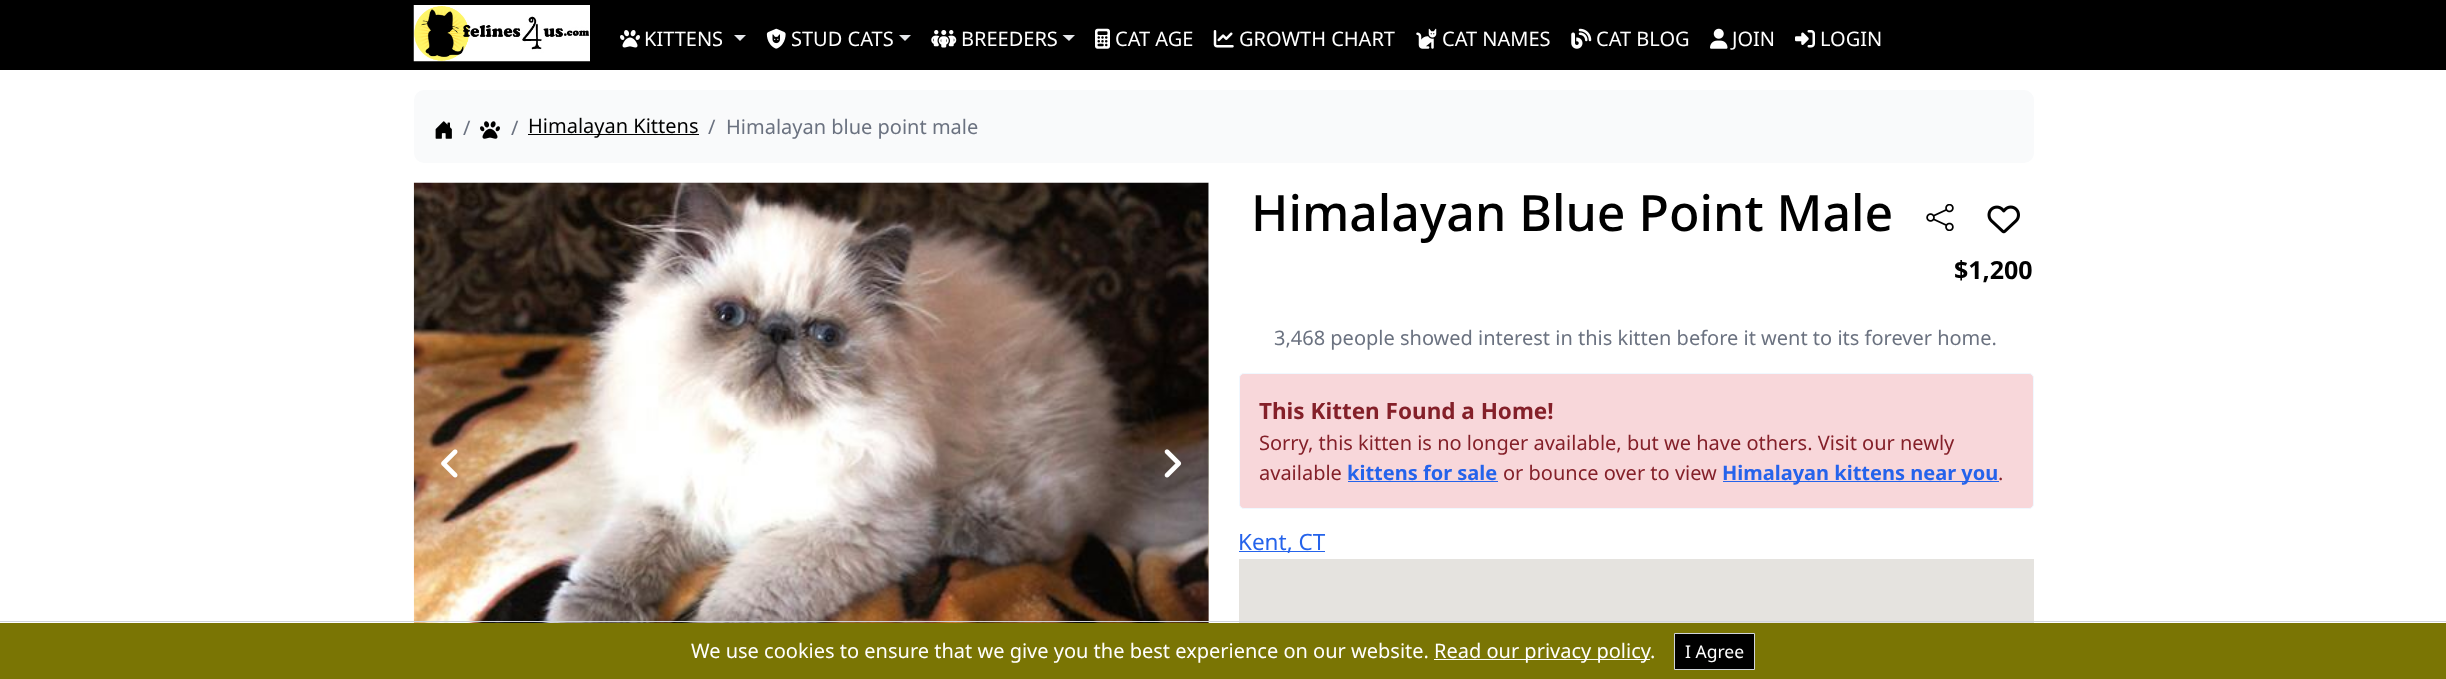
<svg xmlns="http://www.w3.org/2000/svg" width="2446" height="679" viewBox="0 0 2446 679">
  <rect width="100%" height="100%" fill="#fff"/>
  <path d="M0 0h2446v70H0z" fill="#000"/>
  <image x="413" y="5" width="177" height="57" href="img/1.png"/>
  <image x="620" y="30" width="20" height="18" href="img/2.png"/>
  <path d="M734 35H746L740 41Z" fill="#e5e7eb"/>
  <image x="766" y="28" width="20" height="21" href="img/3.png"/>
  <path d="M899 35H911L905 41Z" fill="#e5e7eb"/>
  <image x="931" y="30" width="26" height="18" href="img/4.png"/>
  <path d="M1062.5 35H1075L1069 41Z" fill="#e5e7eb"/>
  <image x="1095" y="28" width="15" height="21" href="img/5.png"/>
  <image x="1213" y="30" width="21" height="18" href="img/6.png"/>
  <image x="1416" y="28" width="21" height="21" href="img/7.png"/>
  <image x="1571" y="28" width="21" height="21" href="img/8.png"/>
  <image x="1710" y="28" width="18" height="21" href="img/9.png"/>
  <image x="1795" y="30" width="20" height="18" href="img/10.png"/>
  <rect x="414" y="90" width="1620" height="73" rx="10" fill="#f9fafb"/>
  <image x="435" y="121" width="17" height="18" href="img/11.png"/>
  <image x="480" y="121" width="20" height="18" href="img/12.png"/>
  <path d="M528 134h171v1H528z" fill="#000"/>
  <image x="413" y="182" width="796" height="441" href="img/13.png"/>
  <image x="1208" y="183" width="1" height="440" href="img/14.png"/>
  <image x="441" y="449" width="17" height="29" href="img/15.png"/>
  <image x="1164" y="449" width="18" height="29" href="img/16.png"/>
  <image x="1926" y="204" width="28" height="27" href="img/17.png"/>
  <image x="1987" y="205" width="33" height="29" href="img/18.png"/>
  <rect x="1239.5" y="373.5" width="794" height="135" rx="4.5" fill="#f8d7da" stroke="#f0f8ff"/>
  <path d="M1348 481h150v1H1348z" fill="#2563eb"/>
  <path d="M1723 481h276v1H1723z" fill="#2563eb"/>
  <path d="M1239 551h86v1H1239z" fill="#2563eb"/>
  <path d="M1239 559h795v64H1239z" fill="#e5e3df"/>
  <path d="M0 623h2446v56H0z" fill="#7a7504"/>
  <path d="M0 621h2446v1H0z" fill="#d1d5db"/>
  <path d="M1434 659h216v1H1434z" fill="#fff"/>
  <path d="M1674.5 633.5h80v36H1674.5z" fill="#000" stroke="#d1d5db"/>
  <g font-family="Noto Sans" font-size="20" fill="#fff">
    <text x="644" y="46">KITTENS</text>
    <text x="791" y="46">STUD CATS</text>
    <text x="961" y="46">BREEDERS</text>
    <text x="1115" y="46">CAT AGE</text>
    <text x="1239" y="46">GROWTH CHART</text>
    <text x="1442" y="46">CAT NAMES</text>
    <text x="1596" y="46">CAT BLOG</text>
    <text x="1732" y="46">JOIN</text>
    <text x="1820" y="46">LOGIN</text>
  </g>
  <g font-family="Noto Sans" font-size="20" fill="#6b7280">
    <text x="463" y="135">/</text>
    <text x="511" y="135">/</text>
  </g>
  <text x="528" y="133" font-family="Noto Sans" font-size="20" fill="#000">Himalayan Kittens</text>
  <g font-family="Noto Sans" font-size="20" fill="#6b7280">
    <text x="708" y="134">/</text>
    <text x="726" y="134">Himalayan blue point male</text>
  </g>
  <text x="1251" y="231" font-family="Noto Sans" font-size="50" font-weight="500" fill="#000">Himalayan Blue Point Male</text>
  <text x="1954" y="279" font-family="Noto Sans" font-size="25" font-weight="bold" fill="#000">$1,200</text>
  <text x="1274" y="345" font-family="Noto Sans" font-size="20" fill="#6b7280">3,468 people showed interest in this kitten before it went to its forever home.</text>
  <text x="1259" y="419" font-family="Noto Sans" font-size="22.5" font-weight="bold" fill="#842029">This Kitten Found a Home!</text>
  <g font-family="Noto Sans" font-size="20" fill="#842029">
    <text x="1259" y="450">Sorry, this kitten is no longer available, but we have others. Visit our newly</text>
    <text x="1259" y="480">available</text>
  </g>
  <text x="1347" y="480" font-family="Noto Sans" font-size="20" font-weight="bold" fill="#2563eb">kittens for sale</text>
  <text x="1503" y="480" font-family="Noto Sans" font-size="20" fill="#842029">or bounce over to view</text>
  <text x="1722" y="480" font-family="Noto Sans" font-size="20" font-weight="bold" fill="#2563eb">Himalayan kittens near you</text>
  <text x="1998" y="480" font-family="Noto Sans" font-size="20" fill="#842029">.</text>
  <text x="1238" y="550" font-family="Noto Sans" font-size="22.5" fill="#2563eb">Kent, CT</text>
  <g font-family="Noto Sans" font-size="20" fill="#fff">
    <text x="691" y="658">We use cookies to ensure that we give you the best experience on our website.</text>
    <text x="1434" y="658">Read our privacy policy</text>
    <text x="1650" y="658">.</text>
  </g>
  <text x="1685" y="658" font-family="Noto Sans" font-size="17.5" fill="#fff">I Agree</text>
</svg>
